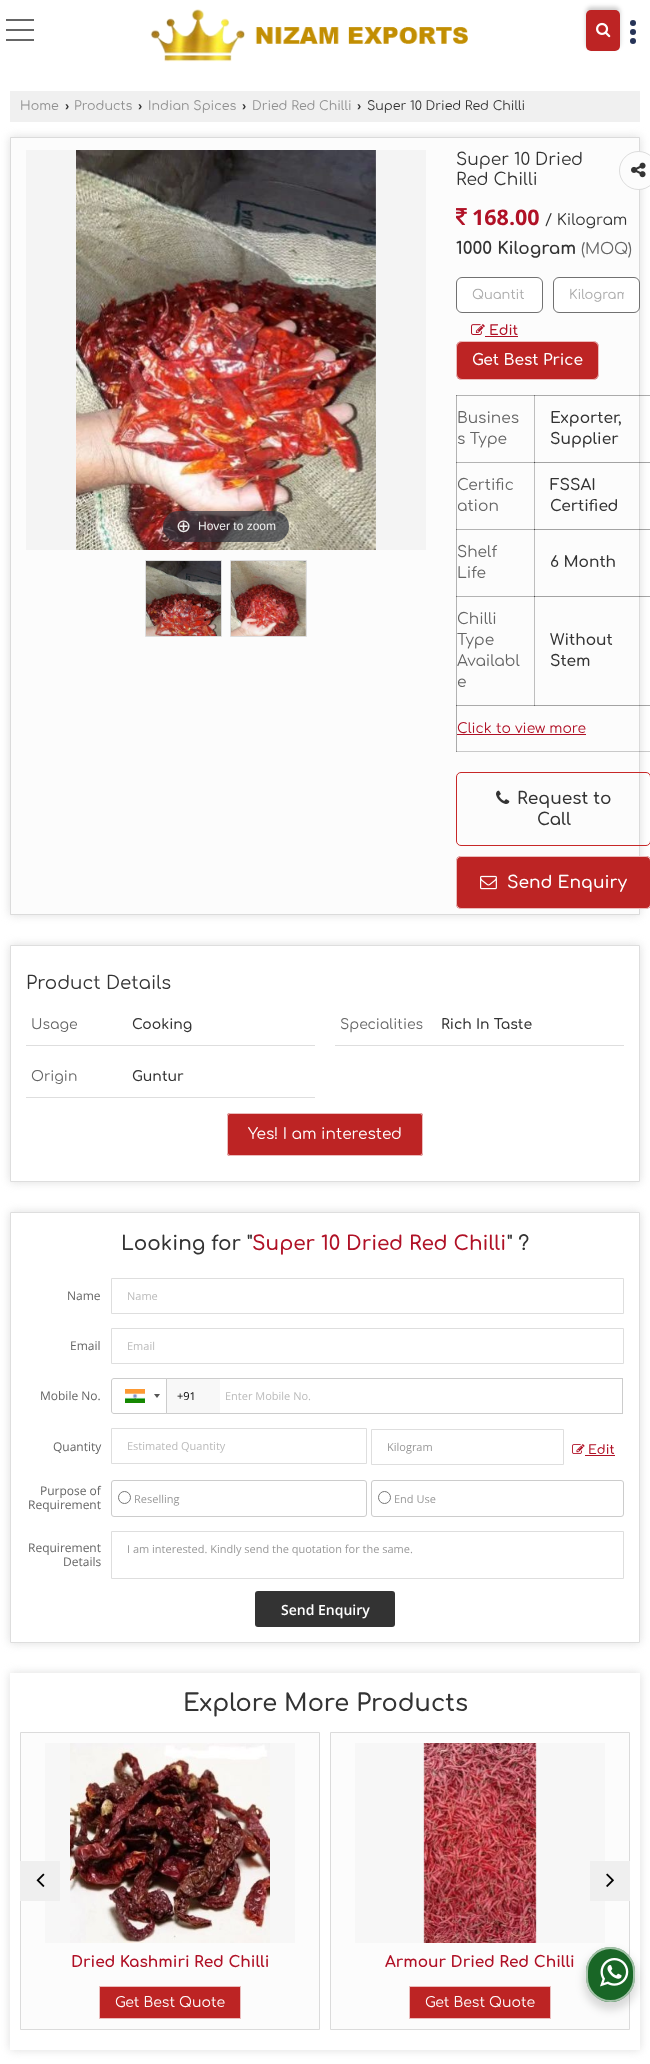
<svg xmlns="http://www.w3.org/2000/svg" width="650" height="2064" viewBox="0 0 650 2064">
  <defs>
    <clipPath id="clip1"><path d="M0 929H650V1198H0ZM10 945H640V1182H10Z" clip-rule="evenodd"/></clipPath>
    <clipPath id="clip2"><path d="M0 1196H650V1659H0ZM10 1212H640V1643H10Z" clip-rule="evenodd"/></clipPath>
    <clipPath id="clip3"><path d="M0 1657H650V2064H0ZM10 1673H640V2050H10Z" clip-rule="evenodd"/></clipPath>
    <clipPath id="clip4"><path d="M569 288h55v14H569z"/></clipPath>
  </defs>
  <rect width="100%" height="100%" fill="#fff"/>
  <path d="M6 29h28v2H6z" fill="#666"/>
  <path d="M6 19h28v2H6z" fill="#666"/>
  <path d="M6 39h28v2H6z" fill="#666"/>
  <rect x="586" y="7" width="34" height="41" rx="5" fill="#00000033" filter="blur(2px)"/>
  <rect x="586" y="10" width="34" height="41" rx="5" fill="#bd2424"/>
  <image x="596" y="22" width="15" height="16" href="img/1.png"/>
  <image x="150" y="9" width="318" height="53" href="img/2.png"/>
  <circle cx="633" cy="32" r="3" fill="#263357"/>
  <circle cx="633" cy="23" r="3" fill="#263357"/>
  <circle cx="633" cy="41" r="3" fill="#263357"/>
  <path d="M10 91h630v31H10z" fill="#f0f0f0"/>
  <path d="M10 137h630v778H10z" fill="#ccccccab" filter="blur(5px)"/>
  <path d="M10.5 137.5h629v777H10.5z" fill="#fcfcfc" stroke="#dbdbdb"/>
  <path d="M26 150h400v400H26z" fill="#f4f4f4"/>
  <image x="76" y="150" width="300" height="400" href="img/3.png"/>
  <rect x="163" y="511" width="126" height="31" rx="15.5" fill="#31333db3"/>
  <path d="M145.5 560.5h76v76H145.5z" fill="none" stroke="#ddd"/>
  <image x="146" y="561" width="75" height="75" href="img/4.png"/>
  <path d="M230.5 560.5h76v76H230.5z" fill="none" stroke="#ddd"/>
  <image x="231" y="561" width="75" height="75" href="img/5.png"/>
  <circle cx="638.5" cy="170.5" r="19.5" fill="#fcfcfc"/>
  <circle cx="638.5" cy="170.5" r="19" fill="none" stroke="#00000021"/>
  <image x="631" y="162" width="15" height="16" href="img/6.png"/>
  <image x="456" y="208" width="11" height="17" href="img/7.png"/>
  <rect x="456.5" y="277.5" width="86" height="35" rx="5.5" fill="#fff" stroke="#717171"/>
  <rect x="553.5" y="277.5" width="86" height="35" rx="5.5" fill="#fff" stroke="#717171"/>
  <image x="471" y="324" width="14" height="11" href="img/8.png"/>
  <path d="M485 336h33v1H485z" fill="#b01126"/>
  <rect x="456" y="341" width="143" height="39" rx="6" fill="#bd2424"/>
  <rect x="456.5" y="341.5" width="142" height="38" rx="5.5" fill="none" stroke="#ffffffb3"/>
  <path d="M456 395h194v1H456z" fill="#00000033"/>
  <path d="M456 751h194v1H456z" fill="#00000033"/>
  <path d="M456 395h1v357H456z" fill="#00000033"/>
  <path d="M534 395h116v1H534z" fill="#00000026"/>
  <path d="M456 462h194v1H456z" fill="#0000001a"/>
  <path d="M534 462h116v1H534z" fill="#00000026"/>
  <path d="M456 529h194v1H456z" fill="#0000001a"/>
  <path d="M534 529h116v1H534z" fill="#00000026"/>
  <path d="M456 596h194v1H456z" fill="#0000001a"/>
  <path d="M534 596h116v1H534z" fill="#00000026"/>
  <path d="M456 705h194v1H456z" fill="#0000001a"/>
  <path d="M456 705h194v1H456z" fill="#00000026"/>
  <path d="M534 705h116v1H534z" fill="#00000026"/>
  <path d="M534 596h1v110H534z" fill="#00000026"/>
  <path d="M456 596h79v1H456z" fill="#0000001c"/>
  <path d="M534 596h1v110H534z" fill="#0000001c"/>
  <path d="M534 596h116v1H534z" fill="#00000026"/>
  <path d="M534 529h1v68H534z" fill="#00000026"/>
  <path d="M456 529h79v1H456z" fill="#0000001c"/>
  <path d="M534 529h1v68H534z" fill="#0000001c"/>
  <path d="M534 529h116v1H534z" fill="#00000026"/>
  <path d="M534 462h1v68H534z" fill="#00000026"/>
  <path d="M456 462h79v1H456z" fill="#0000001c"/>
  <path d="M534 462h1v68H534z" fill="#0000001c"/>
  <path d="M534 462h116v1H534z" fill="#00000026"/>
  <path d="M534 395h1v68H534z" fill="#00000026"/>
  <path d="M456 395h79v1H456z" fill="#0000001c"/>
  <path d="M534 395h1v68H534z" fill="#0000001c"/>
  <path d="M456 705h1v47H456z" fill="#00000026"/>
  <path d="M456 705h79v1H456z" fill="#0000001c"/>
  <path d="M456 596h1v110H456z" fill="#0000001c"/>
  <path d="M456 596h79v1H456z" fill="#0000001c"/>
  <path d="M456 529h1v68H456z" fill="#0000001c"/>
  <path d="M456 529h79v1H456z" fill="#0000001c"/>
  <path d="M456 462h1v68H456z" fill="#0000001c"/>
  <path d="M456 462h79v1H456z" fill="#0000001c"/>
  <path d="M456 395h1v68H456z" fill="#0000001c"/>
  <path d="M457 734h129v1H457z" fill="#b01126"/>
  <rect x="456.5" y="772.5" width="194" height="73" rx="4.5" fill="none" stroke="#c72828"/>
  <image x="496" y="790" width="14" height="14" href="img/9.png"/>
  <rect x="456" y="856" width="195" height="53" rx="5" fill="#bd2424"/>
  <rect x="456.5" y="856.5" width="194" height="52" rx="4.5" fill="none" stroke="#ffffffb3"/>
  <image x="480" y="875" width="17" height="15" href="img/10.png"/>
  <g clip-path="url(#clip1)">
    <path d="M10 945h630v237H10z" fill="#ccccccab" filter="blur(5px)"/>
  </g>
  <path d="M10.5 945.5h629v236H10.5z" fill="none" stroke="#dedede"/>
  <path d="M26 1045h289v1H26z" fill="#dedede"/>
  <path d="M335 1045h289v1H335z" fill="#dedede"/>
  <path d="M26 1097h289v1H26z" fill="#dedede"/>
  <rect x="227" y="1113" width="196" height="43" rx="3" fill="#bd2424"/>
  <rect x="227.5" y="1113.5" width="195" height="42" rx="2.5" fill="none" stroke="#ffffffb3"/>
  <g clip-path="url(#clip2)">
    <path d="M10 1212h630v431H10z" fill="#ccccccab" filter="blur(5px)"/>
  </g>
  <path d="M10.5 1212.5h629v430H10.5z" fill="none" stroke="#dedede"/>
  <path d="M111.5 1278.5h512v35H111.5z" fill="none" stroke="#dedede"/>
  <path d="M111.5 1328.5h512v35H111.5z" fill="none" stroke="#dedede"/>
  <path d="M114 1378.5H166.5V1413.5H114C112.5 1413.5 111.5 1412.5 111.5 1411V1381C111.5 1379.5 112.5 1378.5 114 1378.5Z" fill="none" stroke="#ccc"/>
  <path d="M125 1389h20v14H125z" fill="#888" filter="blur(0.5px)"/>
  <image x="125" y="1389" width="20" height="14" href="img/11.png"/>
  <path d="M154 1394H160L157 1398Z" fill="#555"/>
  <path d="M166.5 1378.5h54v35H166.5z" fill="#f8f8f8" stroke="#ccc"/>
  <path d="M220 1379h1v34H220z" fill="#fff"/>
  <path d="M220 1378h403v1H220z" fill="#ccc"/>
  <path d="M622 1378h1v36H622z" fill="#ccc"/>
  <path d="M220 1413h403v1H220z" fill="#ccc"/>
  <path d="M111.5 1428.5h255v35H111.5z" fill="none" stroke="#dedede"/>
  <path d="M371.5 1429.5h192v35H371.5z" fill="none" stroke="#dedede"/>
  <image x="572" y="1444" width="13" height="10" href="img/12.png"/>
  <path d="M585 1455h30v1H585z" fill="#b01126"/>
  <rect x="111.5" y="1480.5" width="255" height="36" rx="2.5" fill="none" stroke="#ccc"/>
  <circle cx="124.5" cy="1497.5" r="6" fill="none" stroke="#767676"/>
  <rect x="371.5" y="1480.5" width="252" height="36" rx="2.5" fill="none" stroke="#ccc"/>
  <circle cx="384.5" cy="1497.5" r="6" fill="none" stroke="#767676"/>
  <path d="M111.5 1531.5h512v47H111.5z" fill="none" stroke="#dedede"/>
  <rect x="255" y="1591" width="140" height="36" rx="3" fill="#333"/>
  <g clip-path="url(#clip3)">
    <path d="M10 1673h630v377H10z" fill="#ccccccab" filter="blur(5px)"/>
  </g>
  <path d="M20.5 1732.5h299v297H20.5z" fill="#fcfcfc" stroke="#dbdbdb"/>
  <path d="M45 1743h250v200H45z" fill="#f7f7f7"/>
  <path d="M20 1861h40v40H20z" fill="#efefef"/>
  <image x="36" y="1873" width="9" height="14" href="img/13.png"/>
  <path d="M330.5 1732.5h299v297H330.5z" fill="#fcfcfc" stroke="#dbdbdb"/>
  <path d="M355 1743h250v200H355z" fill="#f7f7f7"/>
  <path d="M590 1861h40v40H590z" fill="#efefef"/>
  <image x="606" y="1873" width="8" height="14" href="img/14.png"/>
  <image x="70" y="1743" width="200" height="200" href="img/15.png"/>
  <path d="M99.5 1986.5h141v32H99.5z" fill="#bd2424" stroke="#ebbdbd"/>
  <image x="423" y="1743" width="114" height="200" href="img/16.png"/>
  <path d="M409.5 1986.5h141v32H409.5z" fill="#bd2424" stroke="#ebbdbd"/>
  <rect x="584" y="1951" width="53" height="59" rx="26.5" fill="#00000024" filter="blur(4px)"/>
  <rect x="586" y="1947" width="49" height="55" rx="24.5" fill="#196626"/>
  <rect x="587" y="1948" width="47" height="53" rx="23.5" fill="none" stroke="#ffffff99" stroke-width="2"/>
  <image x="600" y="1958" width="29" height="29" href="img/17.png"/>
  <text x="20" y="110" font-family="Comfortaa" font-size="12.6" fill="#909090">Home</text>
  <text x="65" y="110" font-family="Liberation Sans" font-size="12.6" font-weight="bold" fill="#333">›</text>
  <text x="74" y="110" font-family="Comfortaa" font-size="12.6" fill="#909090">Products</text>
  <text x="138" y="110" font-family="Liberation Sans" font-size="12.6" font-weight="bold" fill="#333">›</text>
  <text x="148" y="110" font-family="Comfortaa" font-size="12.6" fill="#909090">Indian Spices</text>
  <text x="242" y="110" font-family="Liberation Sans" font-size="12.6" font-weight="bold" fill="#333">›</text>
  <text x="252" y="110" font-family="Comfortaa" font-size="12.6" fill="#909090">Dried Red Chilli</text>
  <text x="357" y="110" font-family="Liberation Sans" font-size="12.6" font-weight="bold" fill="#333">›</text>
  <text x="367" y="110" font-family="Comfortaa" font-size="12.6" fill="#333">Super 10 Dried Red Chilli</text>
  <text x="176" y="532" font-family="DejaVu Sans" font-size="18" fill="#eee">⊕</text>
  <text x="198" y="530" font-family="Liberation Sans" font-size="12" fill="#eee">Hover to zoom</text>
  <g font-family="Comfortaa" font-size="17" fill="#333">
    <text x="456" y="165">Super 10 Dried</text>
    <text x="456" y="185">Red Chilli</text>
  </g>
  <text x="472" y="225" font-family="Open Sans" font-size="21.5" font-weight="bold" fill="#b01126">168.00</text>
  <text x="545" y="225" font-family="Comfortaa" font-size="15.4" fill="#333">/ Kilogram</text>
  <text x="456" y="254" font-family="Comfortaa" font-size="17" font-weight="bold" fill="#333">1000 Kilogram</text>
  <text x="581" y="254" font-family="Comfortaa" font-size="15.4" fill="#656565">(MOQ)</text>
  <text x="472" y="299" font-family="Comfortaa" font-size="13" fill="#aaa">Quantit</text>
  <g clip-path="url(#clip4)">
    <text x="569" y="299" font-family="Comfortaa" font-size="13" fill="#aaa">Kilogram</text>
  </g>
  <text x="489" y="335" font-family="Comfortaa" font-size="13.9" font-weight="600" fill="#b01126">Edit</text>
  <text x="472" y="365" font-family="Comfortaa" font-size="15.4" font-weight="600" fill="#fff">Get Best Price</text>
  <g font-family="Comfortaa" font-size="15.4" fill="#656565">
    <text x="457" y="423">Busines</text>
    <text x="457" y="444">s Type</text>
  </g>
  <g font-family="Comfortaa" font-size="15.4" font-weight="600" fill="#333">
    <text x="550" y="423">Exporter,</text>
    <text x="550" y="444">Supplier</text>
  </g>
  <g font-family="Comfortaa" font-size="15.4" fill="#656565">
    <text x="457" y="490">Certific</text>
    <text x="457" y="511">ation</text>
  </g>
  <g font-family="Comfortaa" font-size="15.4" font-weight="600" fill="#333">
    <text x="550" y="490">FSSAI</text>
    <text x="550" y="511">Certified</text>
  </g>
  <g font-family="Comfortaa" font-size="15.4" fill="#656565">
    <text x="457" y="557">Shelf</text>
    <text x="457" y="578">Life</text>
  </g>
  <text x="550" y="567" font-family="Comfortaa" font-size="15.4" font-weight="600" fill="#333">6 Month</text>
  <g font-family="Comfortaa" font-size="15.4" fill="#656565">
    <text x="457" y="624">Chilli</text>
    <text x="457" y="645">Type</text>
    <text x="457" y="666">Availabl</text>
    <text x="457" y="687">e</text>
  </g>
  <g font-family="Comfortaa" font-size="15.4" font-weight="600" fill="#333">
    <text x="550" y="645">Without</text>
    <text x="550" y="666">Stem</text>
  </g>
  <text x="457" y="733" font-family="Comfortaa" font-size="13.9" fill="#b01126">Click to view more</text>
  <g font-family="Comfortaa" font-size="17" font-weight="600" fill="#333">
    <text x="517" y="804">Request to</text>
    <text x="537" y="825">Call</text>
  </g>
  <text x="507" y="888" font-family="Comfortaa" font-size="17" font-weight="600" fill="#fff">Send Enquiry</text>
  <text x="26" y="989" font-family="Comfortaa" font-size="18.25" fill="#333">Product Details</text>
  <text x="31" y="1029" font-family="Comfortaa" font-size="14" fill="#656565">Usage</text>
  <text x="132" y="1029" font-family="Comfortaa" font-size="14" font-weight="600" fill="#333">Cooking</text>
  <text x="340" y="1029" font-family="Comfortaa" font-size="14" fill="#656565">Specialities</text>
  <text x="441" y="1029" font-family="Comfortaa" font-size="14" font-weight="600" fill="#333">Rich In Taste</text>
  <text x="31" y="1081" font-family="Comfortaa" font-size="14" fill="#656565">Origin</text>
  <text x="132" y="1081" font-family="Comfortaa" font-size="14" font-weight="600" fill="#333">Guntur</text>
  <text x="248" y="1139" font-family="Comfortaa" font-size="15.4" fill="#fff">Yes! I am interested</text>
  <text x="121" y="1250" font-family="Comfortaa" font-size="20" font-weight="600" fill="#333">Looking for "</text>
  <text x="252" y="1250" font-family="Comfortaa" font-size="20" font-weight="600" fill="#b01126">Super 10 Dried Red Chilli</text>
  <text x="507" y="1250" font-family="Comfortaa" font-size="20" font-weight="600" fill="#333">" ?</text>
  <text x="67" y="1300" font-family="Open Sans" font-size="12" fill="#656565">Name</text>
  <text x="127" y="1300" font-family="Open Sans" font-size="11" fill="#bbb">Name</text>
  <text x="70" y="1350" font-family="Open Sans" font-size="12" fill="#656565">Email</text>
  <text x="127" y="1350" font-family="Open Sans" font-size="11" fill="#bbb">Email</text>
  <text x="40" y="1400" font-family="Open Sans" font-size="12" fill="#656565">Mobile No.</text>
  <text x="177" y="1400" font-family="Open Sans" font-size="11" fill="#000">+91</text>
  <text x="225" y="1400" font-family="Open Sans" font-size="11" fill="#bbb">Enter Mobile No.</text>
  <text x="53" y="1451" font-family="Open Sans" font-size="12" fill="#656565">Quantity</text>
  <text x="127" y="1450" font-family="Open Sans" font-size="11" fill="#bbb">Estimated Quantity</text>
  <text x="387" y="1451" font-family="Open Sans" font-size="11" fill="#999">Kilogram</text>
  <text x="588" y="1454" font-family="Comfortaa" font-size="12.6" font-weight="600" fill="#b01126">Edit</text>
  <g font-family="Open Sans" font-size="12" fill="#656565">
    <text x="40" y="1495">Purpose of</text>
    <text x="28" y="1509">Requirement</text>
  </g>
  <g font-family="Open Sans" font-size="11" fill="#999">
    <text x="134" y="1503">Reselling</text>
    <text x="394" y="1503">End Use</text>
  </g>
  <g font-family="Open Sans" font-size="12" fill="#656565">
    <text x="28" y="1552">Requirement</text>
    <text x="63" y="1566">Details</text>
  </g>
  <text x="127" y="1553" font-family="Open Sans" font-size="11" fill="#999">I am interested. Kindly send the quotation for the same.</text>
  <text x="281" y="1615" font-family="Open Sans" font-size="14" font-weight="600" fill="#fff">Send Enquiry</text>
  <text x="183" y="1711" font-family="Comfortaa" font-size="24" font-weight="600" fill="#333">Explore More Products</text>
  <text x="71" y="1967" font-family="Comfortaa" font-size="15.4" font-weight="bold" fill="#b01126">Dried Kashmiri Red Chilli</text>
  <text x="115" y="2007" font-family="Comfortaa" font-size="14" fill="#fff">Get Best Quote</text>
  <text x="385" y="1967" font-family="Comfortaa" font-size="15.4" font-weight="bold" fill="#b01126">Armour Dried Red Chilli</text>
  <text x="425" y="2007" font-family="Comfortaa" font-size="14" fill="#fff">Get Best Quote</text>
</svg>
